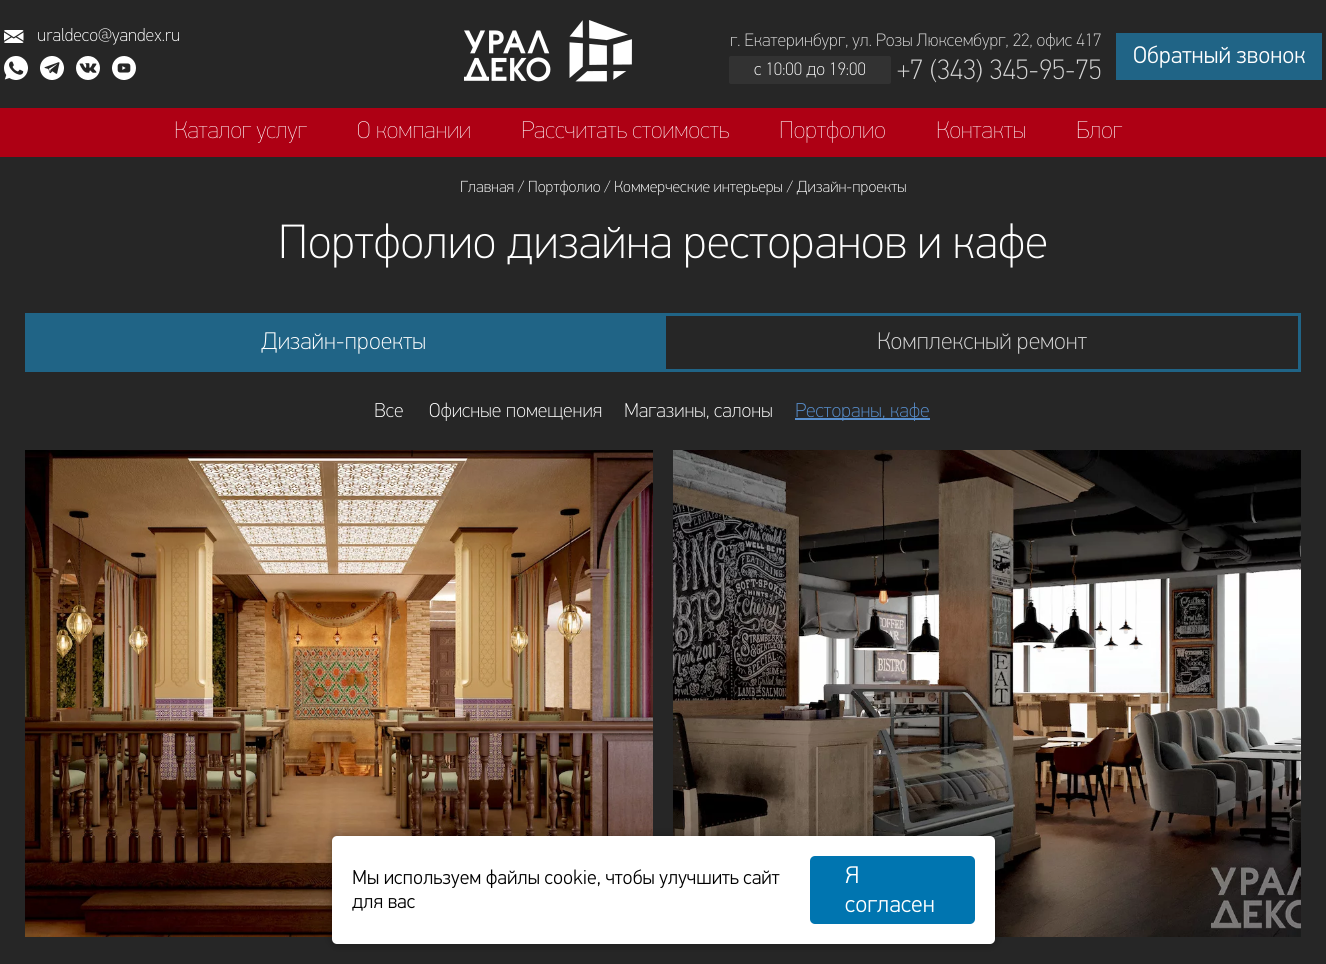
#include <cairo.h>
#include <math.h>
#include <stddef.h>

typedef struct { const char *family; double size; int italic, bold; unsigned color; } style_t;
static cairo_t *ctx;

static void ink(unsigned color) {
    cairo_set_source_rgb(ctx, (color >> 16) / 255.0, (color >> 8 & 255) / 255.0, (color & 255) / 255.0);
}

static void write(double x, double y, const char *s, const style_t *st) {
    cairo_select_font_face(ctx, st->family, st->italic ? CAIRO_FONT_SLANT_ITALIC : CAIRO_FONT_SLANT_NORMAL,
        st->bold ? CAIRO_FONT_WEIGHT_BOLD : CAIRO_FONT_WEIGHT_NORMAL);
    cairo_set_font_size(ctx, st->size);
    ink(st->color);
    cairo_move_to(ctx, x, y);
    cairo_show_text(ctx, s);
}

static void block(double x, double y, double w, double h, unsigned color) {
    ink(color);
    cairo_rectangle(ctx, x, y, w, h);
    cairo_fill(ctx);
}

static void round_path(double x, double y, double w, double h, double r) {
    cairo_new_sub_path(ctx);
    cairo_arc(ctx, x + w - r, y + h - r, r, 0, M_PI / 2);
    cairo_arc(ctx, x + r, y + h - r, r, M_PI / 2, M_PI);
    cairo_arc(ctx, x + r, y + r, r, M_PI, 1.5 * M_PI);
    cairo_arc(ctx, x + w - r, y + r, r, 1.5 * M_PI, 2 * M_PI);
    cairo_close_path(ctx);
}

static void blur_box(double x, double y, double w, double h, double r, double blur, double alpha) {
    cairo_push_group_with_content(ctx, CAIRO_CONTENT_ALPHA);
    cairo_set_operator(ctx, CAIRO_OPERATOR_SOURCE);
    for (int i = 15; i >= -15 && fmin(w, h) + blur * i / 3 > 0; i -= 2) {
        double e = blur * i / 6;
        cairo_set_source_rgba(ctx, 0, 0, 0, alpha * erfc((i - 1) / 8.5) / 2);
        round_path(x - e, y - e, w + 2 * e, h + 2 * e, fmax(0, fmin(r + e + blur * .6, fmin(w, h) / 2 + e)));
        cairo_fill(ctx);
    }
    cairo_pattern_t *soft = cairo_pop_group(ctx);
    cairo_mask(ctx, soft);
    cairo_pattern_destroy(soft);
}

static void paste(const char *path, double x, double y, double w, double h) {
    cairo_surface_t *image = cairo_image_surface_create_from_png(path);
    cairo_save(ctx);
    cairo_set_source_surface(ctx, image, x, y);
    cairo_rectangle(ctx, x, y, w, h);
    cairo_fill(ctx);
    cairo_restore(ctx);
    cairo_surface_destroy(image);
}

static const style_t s1 = {"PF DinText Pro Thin", 18, 0, 0, 0xffffff};
static const style_t s2 = {"PF DinText Pro Thin", 18, 0, 0, 0xd6d6d6};
static const style_t s3 = {"PF DinText Pro Thin", 28, 0, 0, 0xd6d6d6};
static const style_t s4 = {"PF DinText Pro Light", 24, 0, 0, 0xffffff};
static const style_t s5 = {"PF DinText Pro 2 Thin", 24, 0, 0, 0xffffff};
static const style_t s6 = {"PF DinText Pro Thin", 16, 0, 0, 0xffffff};
static const style_t s7 = {"PF DinText Pro Thin", 48, 0, 0, 0xffffff};
static const style_t s8 = {"PF DinText Pro Thin", 24, 0, 0, 0xffffff};
static const style_t s9 = {"PF DinText Pro Thin", 24, 0, 0, 0xd6d6d6};
static const style_t s10 = {"PF DinText Pro Thin", 20, 0, 0, 0xffffff};
static const style_t s11 = {"PF DinText Pro Thin", 20, 0, 0, 0x588fce};
static const style_t s12 = {"PF DinText Pro Light", 20, 0, 0, 0x000000};

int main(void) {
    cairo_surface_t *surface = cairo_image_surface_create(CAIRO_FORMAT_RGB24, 1326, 964);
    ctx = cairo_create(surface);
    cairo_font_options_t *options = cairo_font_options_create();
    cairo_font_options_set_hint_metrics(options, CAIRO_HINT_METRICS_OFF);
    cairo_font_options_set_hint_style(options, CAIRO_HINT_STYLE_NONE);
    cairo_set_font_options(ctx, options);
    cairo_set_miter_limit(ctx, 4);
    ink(0x262626);
    cairo_paint(ctx);
    paste("pic1.png", 4, 30, 20, 13);
    write(37, 41, "uraldeco@yandex.ru", &s1);
    paste("pic2.png", 4, 56, 24, 24);
    paste("pic3.png", 40, 56, 24, 24);
    paste("pic4.png", 76, 56, 24, 24);
    paste("pic5.png", 112, 56, 24, 24);
    paste("pic6.png", 464, 20, 168, 62);
    write(730, 46, "г. Екатеринбург, ул. Розы Люксембург, 22, офис 417", &s2);
    ink(0x323232);
    round_path(729, 56, 162, 28, 2);
    cairo_fill(ctx);
    write(754, 75, "с 10:00 до 19:00", &s1);
    write(897, 79, "+7 (343) 345-95-75", &s3);
    block(1116, 33, 206, 47, 0x206486);
    write(1133, 63, "Обратный звонок", &s4);
    block(0, 108, 1326, 49, 0xae0014);
    write(174, 138, "Каталог услуг", &s5);
    write(357, 138, "О компании", &s5);
    write(521, 138, "Рассчитать стоимость", &s5);
    write(779, 138, "Портфолио", &s5);
    write(936, 138, "Контакты", &s5);
    write(1076, 138, "Блог", &s5);
    write(460, 192, "Главная / Портфолио / Коммерческие интерьеры / Дизайн-проекты", &s6);
    write(278, 258, "Портфолио дизайна ресторанов и кафе", &s7);
    block(25, 313, 638, 59, 0x206486);
    write(261, 349, "Дизайн-проекты", &s8);
    cairo_rectangle(ctx, 664.5, 314.5, 635, 56);
    ink(0x206486);
    cairo_set_line_width(ctx, 3);
    cairo_stroke(ctx);
    write(877, 349, "Комплексный ремонт", &s9);
    write(374, 417, "Все", &s10);
    write(429, 417, "Офисные помещения", &s10);
    write(624, 417, "Магазины, салоны", &s10);
    block(795, 418, 135, 2, 0x588fce);
    write(795, 417, "Рестораны, кафе", &s11);
    paste("pic7.png", 25, 450, 628, 487);
    paste("pic8.png", 673, 450, 628, 487);
    ink(0x000000);
    blur_box(332, 836, 663, 108, 5, 5, 0.3);
    ink(0xffffff);
    round_path(332, 836, 663, 108, 5);
    cairo_fill(ctx);
    write(352, 884, "Мы используем файлы cookie, чтобы улучшить сайт", &s12);
    write(352, 908, "для вас", &s12);
    ink(0x0075b0);
    round_path(810, 856, 165, 68, 5);
    cairo_fill(ctx);
    write(845, 883, "Я", &s4);
    write(845, 912, "согласен", &s4);
    cairo_surface_write_to_png(surface, "screenshot.png");
    cairo_font_options_destroy(options);
    cairo_destroy(ctx);
    cairo_surface_destroy(surface);
    return 0;
}
